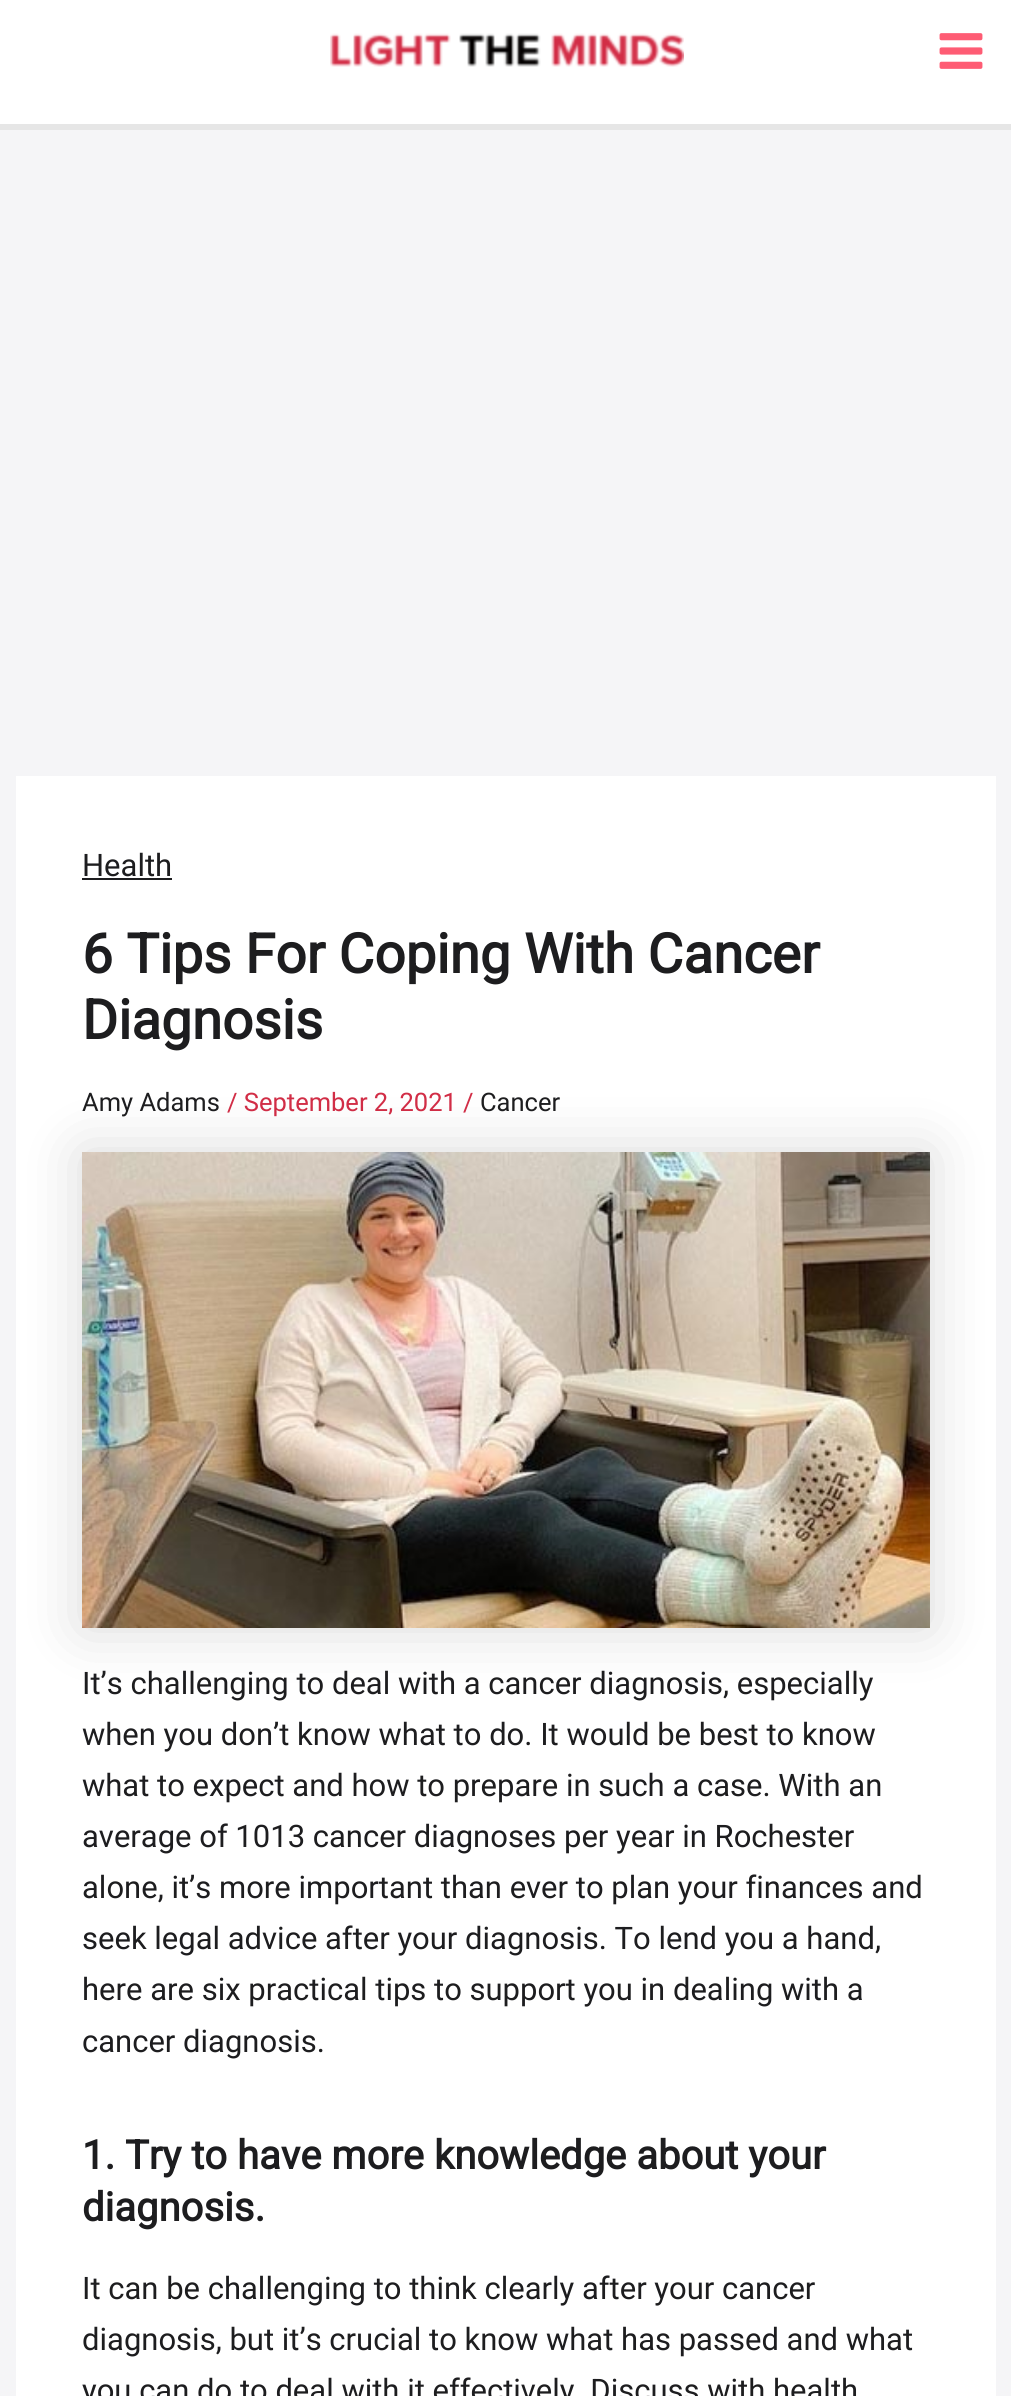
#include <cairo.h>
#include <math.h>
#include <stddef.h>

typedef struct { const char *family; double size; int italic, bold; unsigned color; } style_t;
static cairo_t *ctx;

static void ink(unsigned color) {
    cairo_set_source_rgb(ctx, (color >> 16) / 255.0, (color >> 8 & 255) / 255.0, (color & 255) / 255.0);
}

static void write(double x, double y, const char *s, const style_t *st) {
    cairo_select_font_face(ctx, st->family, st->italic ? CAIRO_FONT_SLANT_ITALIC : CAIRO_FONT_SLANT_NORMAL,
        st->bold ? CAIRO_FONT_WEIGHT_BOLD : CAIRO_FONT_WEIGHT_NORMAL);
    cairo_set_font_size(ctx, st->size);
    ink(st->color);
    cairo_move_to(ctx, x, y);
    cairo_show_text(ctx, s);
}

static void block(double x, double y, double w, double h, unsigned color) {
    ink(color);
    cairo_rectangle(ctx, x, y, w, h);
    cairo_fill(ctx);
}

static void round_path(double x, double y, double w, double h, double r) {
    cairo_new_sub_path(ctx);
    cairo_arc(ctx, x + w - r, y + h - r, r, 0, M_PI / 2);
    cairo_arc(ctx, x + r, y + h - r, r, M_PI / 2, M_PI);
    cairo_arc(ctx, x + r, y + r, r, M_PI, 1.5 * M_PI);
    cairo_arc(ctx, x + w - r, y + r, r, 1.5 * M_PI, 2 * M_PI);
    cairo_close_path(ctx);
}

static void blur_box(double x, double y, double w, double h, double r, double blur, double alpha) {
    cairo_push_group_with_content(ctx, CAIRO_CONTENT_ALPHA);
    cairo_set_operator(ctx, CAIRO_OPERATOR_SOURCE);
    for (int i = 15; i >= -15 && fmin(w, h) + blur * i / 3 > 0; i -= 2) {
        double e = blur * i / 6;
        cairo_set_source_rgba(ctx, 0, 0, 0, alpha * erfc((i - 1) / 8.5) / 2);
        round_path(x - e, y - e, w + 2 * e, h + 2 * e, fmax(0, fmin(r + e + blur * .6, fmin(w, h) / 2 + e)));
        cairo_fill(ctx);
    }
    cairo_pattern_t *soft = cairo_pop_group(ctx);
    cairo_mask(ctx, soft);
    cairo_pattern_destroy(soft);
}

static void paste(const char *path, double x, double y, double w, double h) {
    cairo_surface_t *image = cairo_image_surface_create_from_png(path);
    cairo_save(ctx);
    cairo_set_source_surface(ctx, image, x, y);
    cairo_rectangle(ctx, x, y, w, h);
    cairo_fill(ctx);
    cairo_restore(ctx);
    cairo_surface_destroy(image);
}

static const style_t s1 = {"Roboto", 31, 0, 0, 0x1d1d1f};
static const style_t s2 = {"Roboto", 54.75, 0, 1, 0x1d1d1f};
static const style_t s3 = {"Roboto", 25.5, 0, 0, 0x1d1d1f};
static const style_t s4 = {"Roboto", 25.5, 0, 0, 0xd22d46};
static const style_t s5 = {"Roboto", 40, 0, 1, 0x1d1d1f};

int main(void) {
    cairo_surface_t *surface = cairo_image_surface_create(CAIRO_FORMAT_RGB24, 1011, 2396);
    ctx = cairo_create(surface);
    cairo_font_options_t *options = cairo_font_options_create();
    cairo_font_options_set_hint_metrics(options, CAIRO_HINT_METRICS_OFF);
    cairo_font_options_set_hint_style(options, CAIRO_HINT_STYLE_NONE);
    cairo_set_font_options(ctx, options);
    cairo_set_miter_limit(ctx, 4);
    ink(0xf5f5f7);
    cairo_paint(ctx);
    block(0, 0, 1011, 124, 0xffffff);
    block(0, 124, 1011, 6, 0xe6e6e6);
    paste("pic1.png", 330, 33, 354, 34);
    paste("pic2.png", 939, 33, 44, 36);
    block(16, 776, 980, 1620, 0xffffff);
    write(82, 876, "Health", &s1);
    block(82, 878, 90, 2, 0x1d1d1f);
    write(82, 973, "6 Tips For Coping With Cancer", &s2);
    write(82, 1039, "Diagnosis", &s2);
    write(82, 1111, "Amy Adams", &s3);
    write(227, 1111, "/ September 2, 2021", &s4);
    write(463, 1111, "/", &s4);
    write(480, 1111, "Cancer", &s3);
    ink(0x000000);
    blur_box(82, 1152, 848, 476, 0, 30, 0.15);
    paste("pic3.png", 82, 1152, 848, 476);
    write(82, 1694, "It’s challenging to deal with a cancer diagnosis, especially", &s1);
    write(82, 1745, "when you don’t know what to do. It would be best to know", &s1);
    write(82, 1796, "what to expect and how to prepare in such a case. With an", &s1);
    write(82, 1847, "average of 1013 cancer diagnoses per year in Rochester", &s1);
    write(82, 1898, "alone, it’s more important than ever to plan your finances and", &s1);
    write(82, 1949, "seek legal advice after your diagnosis. To lend you a hand,", &s1);
    write(82, 2000, "here are six practical tips to support you in dealing with a", &s1);
    write(82, 2052, "cancer diagnosis.", &s1);
    write(82, 2169, "1. Try to have more knowledge about your", &s5);
    write(82, 2221, "diagnosis.", &s5);
    write(82, 2299, "It can be challenging to think clearly after your cancer", &s1);
    write(82, 2350, "diagnosis, but it’s crucial to know what has passed and what", &s1);
    write(82, 2401, "you can do to deal with it effectively. Discuss with health", &s1);
    cairo_surface_write_to_png(surface, "screenshot.png");
    cairo_font_options_destroy(options);
    cairo_destroy(ctx);
    cairo_surface_destroy(surface);
    return 0;
}
